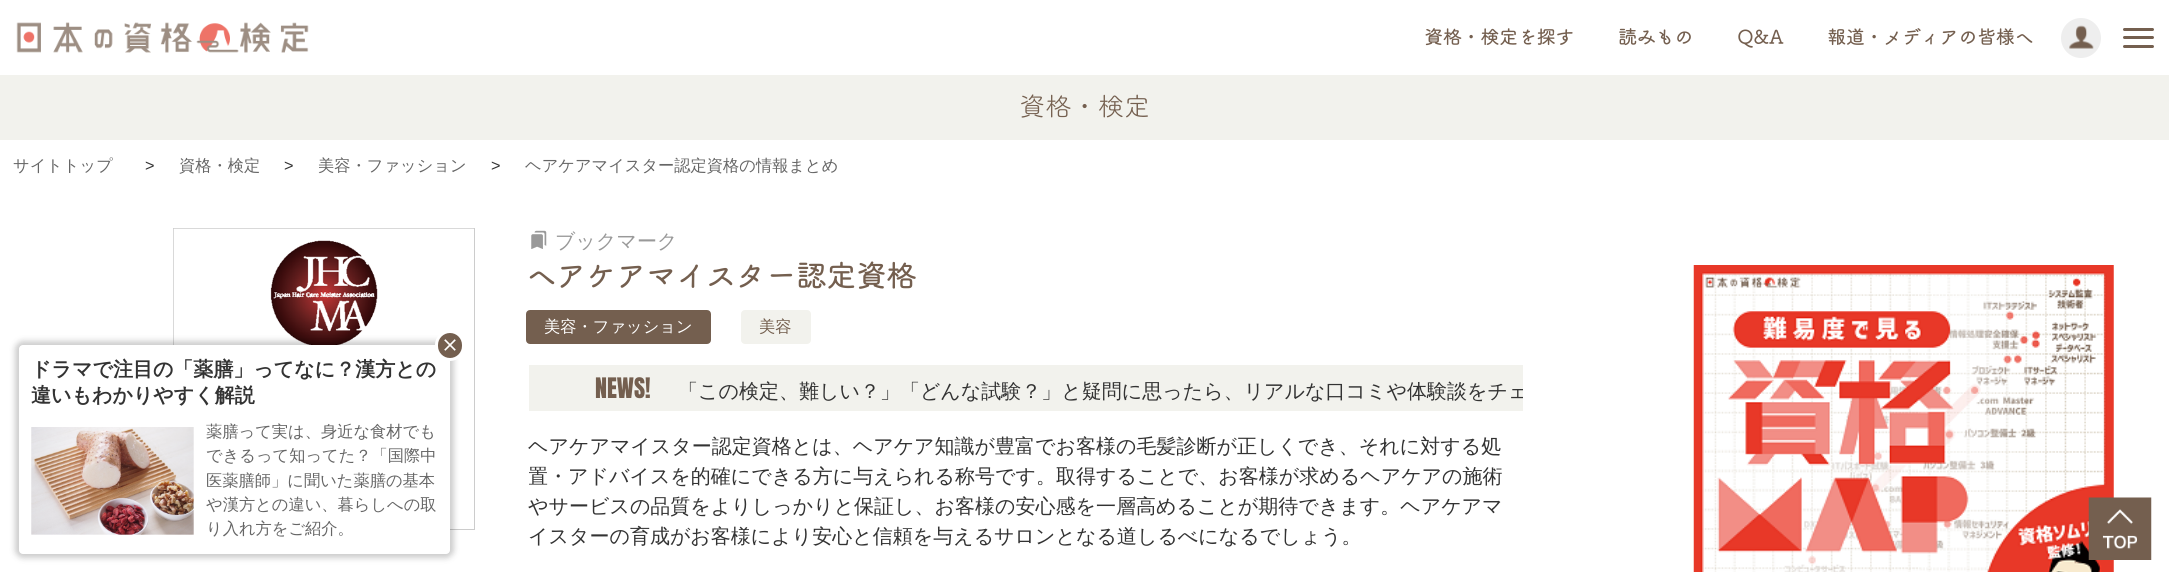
#include <cairo.h>
#include <math.h>
#include <stddef.h>

typedef struct { const char *family; double size; int italic, bold; unsigned color; } style_t;
static cairo_t *ctx;

static void ink(unsigned color) {
    cairo_set_source_rgb(ctx, (color >> 16) / 255.0, (color >> 8 & 255) / 255.0, (color & 255) / 255.0);
}

static void write(double x, double y, const char *s, const style_t *st) {
    cairo_select_font_face(ctx, st->family, st->italic ? CAIRO_FONT_SLANT_ITALIC : CAIRO_FONT_SLANT_NORMAL,
        st->bold ? CAIRO_FONT_WEIGHT_BOLD : CAIRO_FONT_WEIGHT_NORMAL);
    cairo_set_font_size(ctx, st->size);
    ink(st->color);
    cairo_move_to(ctx, x, y);
    cairo_show_text(ctx, s);
}

static void block(double x, double y, double w, double h, unsigned color) {
    ink(color);
    cairo_rectangle(ctx, x, y, w, h);
    cairo_fill(ctx);
}

static void round_path(double x, double y, double w, double h, double r) {
    cairo_new_sub_path(ctx);
    cairo_arc(ctx, x + w - r, y + h - r, r, 0, M_PI / 2);
    cairo_arc(ctx, x + r, y + h - r, r, M_PI / 2, M_PI);
    cairo_arc(ctx, x + r, y + r, r, M_PI, 1.5 * M_PI);
    cairo_arc(ctx, x + w - r, y + r, r, 1.5 * M_PI, 2 * M_PI);
    cairo_close_path(ctx);
}

static void blur_box(double x, double y, double w, double h, double r, double blur, double alpha) {
    cairo_push_group_with_content(ctx, CAIRO_CONTENT_ALPHA);
    cairo_set_operator(ctx, CAIRO_OPERATOR_SOURCE);
    for (int i = 15; i >= -15 && fmin(w, h) + blur * i / 3 > 0; i -= 2) {
        double e = blur * i / 6;
        cairo_set_source_rgba(ctx, 0, 0, 0, alpha * erfc((i - 1) / 8.5) / 2);
        round_path(x - e, y - e, w + 2 * e, h + 2 * e, fmax(0, fmin(r + e + blur * .6, fmin(w, h) / 2 + e)));
        cairo_fill(ctx);
    }
    cairo_pattern_t *soft = cairo_pop_group(ctx);
    cairo_mask(ctx, soft);
    cairo_pattern_destroy(soft);
}

static void paste(const char *path, double x, double y, double w, double h) {
    cairo_surface_t *image = cairo_image_surface_create_from_png(path);
    cairo_save(ctx);
    cairo_set_source_surface(ctx, image, x, y);
    cairo_rectangle(ctx, x, y, w, h);
    cairo_fill(ctx);
    cairo_restore(ctx);
    cairo_surface_destroy(image);
}

static const style_t s1 = {"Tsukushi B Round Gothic", 18.75, 0, 1, 0x745f4f};
static const style_t s2 = {"Tsukushi B Round Gothic", 26.25, 0, 0, 0x745f4f};
static const style_t s3 = {"WenQuanYi Zen Hei Medium", 16.25, 0, 0, 0x666666};
static const style_t s4 = {"Liberation Sans", 16.25, 0, 0, 0x333333};
static const style_t s5 = {"WenQuanYi Zen Hei", 20, 0, 1, 0x333333};
static const style_t s6 = {"WenQuanYi Zen Hei Medium", 20, 0, 0, 0x999999};
static const style_t s7 = {"Tsukushi B Round Gothic", 30, 0, 1, 0x745f4f};
static const style_t s8 = {"WenQuanYi Zen Hei Medium", 16.25, 0, 0, 0xffffff};
static const style_t s9 = {"WenQuanYi Zen Hei Medium", 16.25, 0, 0, 0x745f4f};
static const style_t s10 = {"Anton", 24, 0, 0, 0x745f4f};
static const style_t s11 = {"WenQuanYi Zen Hei Medium", 20, 0, 0, 0x333333};

int main(void) {
    cairo_surface_t *surface = cairo_image_surface_create(CAIRO_FORMAT_RGB24, 2169, 572);
    ctx = cairo_create(surface);
    cairo_font_options_t *options = cairo_font_options_create();
    cairo_font_options_set_hint_metrics(options, CAIRO_HINT_METRICS_OFF);
    cairo_font_options_set_hint_style(options, CAIRO_HINT_STYLE_NONE);
    cairo_set_font_options(ctx, options);
    cairo_set_miter_limit(ctx, 4);
    ink(0xffffff);
    cairo_paint(ctx);
    paste("pic1.png", 16, 22, 293, 31);
    write(1424, 44, "資格・検定を探す", &s1);
    write(1618, 44, "読みもの", &s1);
    write(1737, 44, "Q&A", &s1);
    write(1827, 44, "報道・メディアの皆様へ", &s1);
    ink(0xeeeeee);
    cairo_new_path(ctx);
    cairo_arc(ctx, 2081, 38, 20, 0, 2 * M_PI);
    cairo_fill(ctx);
    paste("pic2.png", 2069, 25, 25, 24);
    ink(0x745f4f);
    round_path(2123, 28, 31, 3, 1.5);
    cairo_fill(ctx);
    round_path(2123, 36, 31, 3, 1.5);
    cairo_fill(ctx);
    round_path(2123, 45, 31, 3, 1.5);
    cairo_fill(ctx);
    block(0, 75, 2169, 65, 0xf2f2ed);
    write(1019, 116, "資格・検定", &s2);
    write(13, 171, "サイトトップ", &s3);
    write(145, 171, ">", &s4);
    write(179, 171, "資格・検定", &s3);
    write(284, 171, ">", &s4);
    write(318, 171, "美容・ファッション", &s3);
    write(491, 171, ">", &s4);
    write(525, 171, "ヘアケアマイスター認定資格の情報まとめ", &s3);
    cairo_rectangle(ctx, 173.5, 228.5, 301, 301);
    ink(0xcccccc);
    cairo_set_line_width(ctx, 1);
    cairo_stroke(ctx);
    paste("pic5.png", 173, 228, 301, 301);
    ink(0x000000);
    blur_box(15, 341, 439, 217, 8, 3, 0.2);
    ink(0xffffff);
    round_path(19, 345, 431, 209, 4);
    cairo_fill(ctx);
    write(31, 376, "ドラマで注目の「薬膳」ってなに？漢方との", &s5);
    ink(0x745f4f);
    round_path(436.5, 331.5, 27, 28, 13.5);
    cairo_fill_preserve(ctx);
    ink(0xffffff);
    cairo_set_line_width(ctx, 3);
    cairo_stroke(ctx);
    paste("pic3.png", 444, 339, 12, 12);
    write(31, 402, "違いもわかりやすく解説", &s5);
    paste("pic4.png", 31, 427, 163, 108);
    write(206, 437, "薬膳って実は、身近な食材でも", &s3);
    write(206, 461, "できるって知ってた？「国際中", &s3);
    write(206, 486, "医薬膳師」に聞いた薬膳の基本", &s3);
    write(206, 510, "や漢方との違い、暮らしへの取", &s3);
    write(206, 534, "り入れ方をご紹介。", &s3);
    paste("pic6.png", 531, 230, 16, 19);
    write(555, 248, "ブックマーク", &s6);
    write(526, 287, "ヘアケアマイスター認定資格", &s7);
    round_path(527.5, 311.5, 182, 31, 2.5);
    cairo_fill_preserve(ctx);
    cairo_stroke(ctx);
    write(544, 332, "美容・ファッション", &s8);
    ink(0xf2f2ed);
    round_path(742.5, 311.5, 67, 31, 2.5);
    cairo_fill_preserve(ctx);
    cairo_stroke(ctx);
    write(759, 332, "美容", &s9);
    block(529, 365, 994, 46, 0xf2f2ed);
    write(595, 398, "NEWS!", &s10);
    cairo_save(ctx);
    cairo_rectangle(ctx, 529, 365, 994, 46);
    cairo_clip(ctx);
    write(678, 398, "「この検定、難しい？」「どんな試験？」と疑問に思ったら、リアルな口コミや体験談をチェ", &s11);
    cairo_restore(ctx);
    write(528, 453, "ヘアケアマイスター認定資格とは、ヘアケア知識が豊富でお客様の毛髪診断が正しくでき、それに対する処", &s11);
    cairo_save(ctx);
    cairo_rectangle(ctx, 529, 431, 994, 120);
    cairo_clip(ctx);
    write(528, 483, "置・アドバイスを的確にできる方に与えられる称号です。取得することで、お客様が求めるヘアケアの施術", &s11);
    cairo_restore(ctx);
    write(528, 513, "やサービスの品質をよりしっかりと保証し、お客様の安心感を一層高めることが期待できます。ヘアケアマ", &s11);
    write(528, 543, "イスターの育成がお客様により安心と信頼を与えるサロンとなる道しるべになるでしょう。", &s11);
    paste("pic7.png", 1693, 265, 421, 307);
    paste("pic8.png", 2088, 497, 64, 63);
    cairo_surface_write_to_png(surface, "screenshot.png");
    cairo_font_options_destroy(options);
    cairo_destroy(ctx);
    cairo_surface_destroy(surface);
    return 0;
}
